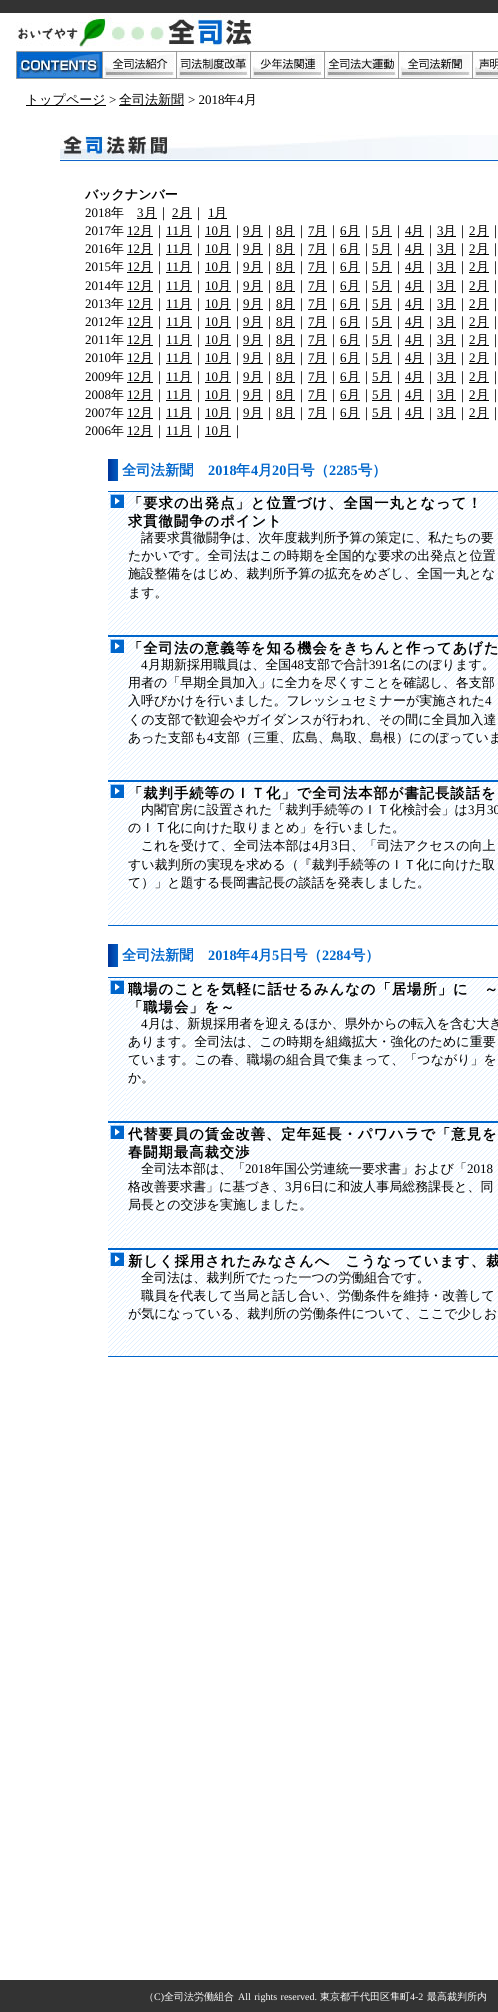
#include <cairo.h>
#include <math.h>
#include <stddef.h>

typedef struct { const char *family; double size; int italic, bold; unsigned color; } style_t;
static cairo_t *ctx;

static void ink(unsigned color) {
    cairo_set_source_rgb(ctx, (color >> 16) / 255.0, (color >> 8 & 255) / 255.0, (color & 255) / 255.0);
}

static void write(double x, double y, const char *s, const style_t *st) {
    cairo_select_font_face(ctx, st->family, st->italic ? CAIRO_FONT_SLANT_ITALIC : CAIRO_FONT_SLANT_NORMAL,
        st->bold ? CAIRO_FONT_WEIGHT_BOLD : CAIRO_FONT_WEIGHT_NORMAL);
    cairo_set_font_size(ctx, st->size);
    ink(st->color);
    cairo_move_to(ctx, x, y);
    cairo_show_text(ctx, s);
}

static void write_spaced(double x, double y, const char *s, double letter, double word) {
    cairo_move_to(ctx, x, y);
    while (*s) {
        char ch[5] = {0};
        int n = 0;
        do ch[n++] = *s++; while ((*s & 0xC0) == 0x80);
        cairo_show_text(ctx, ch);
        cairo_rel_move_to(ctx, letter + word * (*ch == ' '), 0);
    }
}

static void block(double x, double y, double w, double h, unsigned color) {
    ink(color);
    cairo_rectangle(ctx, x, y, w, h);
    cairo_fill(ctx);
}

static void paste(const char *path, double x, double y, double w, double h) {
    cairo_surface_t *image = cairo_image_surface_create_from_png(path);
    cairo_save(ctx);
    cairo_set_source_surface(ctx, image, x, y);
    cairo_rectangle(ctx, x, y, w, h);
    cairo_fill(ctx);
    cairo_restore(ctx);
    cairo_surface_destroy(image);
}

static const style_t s1 = {"WenQuanYi Zen Hei Medium", 13, 0, 0, 0x000000};
static const style_t s2 = {"Liberation Serif", 13, 0, 0, 0x000000};
static const style_t s3 = {"WenQuanYi Zen Hei", 13, 0, 1, 0x000000};
static const style_t s4 = {"WenQuanYi Zen Hei", 14.3, 0, 1, 0x0066cc};
static const style_t s5 = {"Liberation Serif", 14.3, 0, 1, 0x0066cc};
static const style_t s6 = {"WenQuanYi Zen Hei Medium", 10, 0, 0, 0xffffff};
static const style_t s7 = {"Liberation Serif", 10, 0, 0, 0xffffff};

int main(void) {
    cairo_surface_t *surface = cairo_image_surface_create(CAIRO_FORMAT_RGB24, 498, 2012);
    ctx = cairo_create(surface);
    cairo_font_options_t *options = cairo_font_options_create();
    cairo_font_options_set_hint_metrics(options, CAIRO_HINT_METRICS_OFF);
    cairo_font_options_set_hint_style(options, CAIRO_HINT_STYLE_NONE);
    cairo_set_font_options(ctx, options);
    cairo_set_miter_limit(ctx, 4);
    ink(0x333333);
    cairo_paint(ctx);
    block(0, 13, 498, 1, 0xfefefe);
    block(0, 14, 16, 77, 0xffffff);
    block(16, 14, 482, 36, 0xffffff);
    paste("pic1.png", 16, 14, 240, 34);
    paste("pic2.png", 16, 50, 86, 29);
    paste("pic3.png", 102, 50, 74, 29);
    paste("pic4.png", 176, 50, 74, 29);
    paste("pic5.png", 250, 50, 74, 29);
    paste("pic6.png", 324, 50, 74, 29);
    paste("pic7.png", 398, 50, 74, 29);
    paste("pic8.png", 472, 50, 26, 29);
    block(16, 79, 482, 12, 0xffffff);
    block(0, 91, 498, 1889, 0xffffff);
    block(26, 105, 80, 1, 0x000000);
    write(26, 104, "トップページ", &s1);
    write(109, 104, ">", &s2);
    block(119, 105, 65, 1, 0x000000);
    write(119, 104, "全司法新聞", &s1);
    write(188, 104, "> 2018", &s2);
    write(224, 104, "年", &s1);
    write(237, 104, "4", &s2);
    write(244, 104, "月", &s1);
    paste("pic9.png", 60, 135, 438, 32);
    write(85, 199, "バックナンバー", &s3);
    write(85, 217, "2018", &s2);
    write(111, 217, "年", &s1);
    write(137, 217, "3", &s2);
    block(137, 218, 20, 1, 0x000000);
    write(144, 217, "月｜", &s1);
    write(172, 217, "2", &s2);
    block(172, 218, 20, 1, 0x000000);
    write(179, 217, "月｜", &s1);
    write(208, 217, "1", &s2);
    block(208, 218, 19, 1, 0x000000);
    write(214, 217, "月", &s1);
    write(85, 235, "2017", &s2);
    write(111, 235, "年", &s1);
    write(127, 235, "12", &s2);
    block(127, 236, 26, 1, 0x000000);
    write(140, 235, "月｜", &s1);
    write(166, 235, "11", &s2);
    block(166, 236, 26, 1, 0x000000);
    write(179, 235, "月｜", &s1);
    write(205, 235, "10", &s2);
    block(205, 236, 26, 1, 0x000000);
    write(218, 235, "月｜", &s1);
    write(243, 235, "9", &s2);
    block(243, 236, 20, 1, 0x000000);
    write(250, 235, "月｜", &s1);
    write(276, 235, "8", &s2);
    block(276, 236, 19, 1, 0x000000);
    write(282, 235, "月｜", &s1);
    write(308, 235, "7", &s2);
    block(308, 236, 19, 1, 0x000000);
    write(314, 235, "月｜", &s1);
    write(340, 235, "6", &s2);
    block(340, 236, 20, 1, 0x000000);
    write(347, 235, "月｜", &s1);
    write(372, 235, "5", &s2);
    block(372, 236, 20, 1, 0x000000);
    write(379, 235, "月｜", &s1);
    write(405, 235, "4", &s2);
    block(405, 236, 19, 1, 0x000000);
    write(411, 235, "月｜", &s1);
    write(437, 235, "3", &s2);
    block(437, 236, 19, 1, 0x000000);
    write(443, 235, "月｜", &s1);
    write(469, 235, "2", &s2);
    block(469, 236, 20, 1, 0x000000);
    write(476, 235, "月｜", &s1);
    write(85, 253, "2016", &s2);
    write(111, 253, "年", &s1);
    write(127, 253, "12", &s2);
    block(127, 254, 26, 1, 0x000000);
    write(140, 253, "月｜", &s1);
    write(166, 253, "11", &s2);
    block(166, 254, 26, 1, 0x000000);
    write(179, 253, "月｜", &s1);
    write(205, 253, "10", &s2);
    block(205, 254, 26, 1, 0x000000);
    write(218, 253, "月｜", &s1);
    write(243, 253, "9", &s2);
    block(243, 254, 20, 1, 0x000000);
    write(250, 253, "月｜", &s1);
    write(276, 253, "8", &s2);
    block(276, 254, 19, 1, 0x000000);
    write(282, 253, "月｜", &s1);
    write(308, 253, "7", &s2);
    block(308, 254, 19, 1, 0x000000);
    write(314, 253, "月｜", &s1);
    write(340, 253, "6", &s2);
    block(340, 254, 20, 1, 0x000000);
    write(347, 253, "月｜", &s1);
    write(372, 253, "5", &s2);
    block(372, 254, 20, 1, 0x000000);
    write(379, 253, "月｜", &s1);
    write(405, 253, "4", &s2);
    block(405, 254, 19, 1, 0x000000);
    write(411, 253, "月｜", &s1);
    write(437, 253, "3", &s2);
    block(437, 254, 19, 1, 0x000000);
    write(443, 253, "月｜", &s1);
    write(469, 253, "2", &s2);
    block(469, 254, 20, 1, 0x000000);
    write(476, 253, "月｜", &s1);
    write(85, 271, "2015", &s2);
    write(111, 271, "年", &s1);
    write(127, 271, "12", &s2);
    block(127, 272, 26, 1, 0x000000);
    write(140, 271, "月｜", &s1);
    write(166, 271, "11", &s2);
    block(166, 272, 26, 1, 0x000000);
    write(179, 271, "月｜", &s1);
    write(205, 271, "10", &s2);
    block(205, 272, 26, 1, 0x000000);
    write(218, 271, "月｜", &s1);
    write(243, 271, "9", &s2);
    block(243, 272, 20, 1, 0x000000);
    write(250, 271, "月｜", &s1);
    write(276, 271, "8", &s2);
    block(276, 272, 19, 1, 0x000000);
    write(282, 271, "月｜", &s1);
    write(308, 271, "7", &s2);
    block(308, 272, 19, 1, 0x000000);
    write(314, 271, "月｜", &s1);
    write(340, 271, "6", &s2);
    block(340, 272, 20, 1, 0x000000);
    write(347, 271, "月｜", &s1);
    write(372, 271, "5", &s2);
    block(372, 272, 20, 1, 0x000000);
    write(379, 271, "月｜", &s1);
    write(405, 271, "4", &s2);
    block(405, 272, 19, 1, 0x000000);
    write(411, 271, "月｜", &s1);
    write(437, 271, "3", &s2);
    block(437, 272, 19, 1, 0x000000);
    write(443, 271, "月｜", &s1);
    write(469, 271, "2", &s2);
    block(469, 272, 20, 1, 0x000000);
    write(476, 271, "月｜", &s1);
    write(85, 290, "2014", &s2);
    write(111, 290, "年", &s1);
    write(127, 290, "12", &s2);
    block(127, 291, 26, 1, 0x000000);
    write(140, 290, "月｜", &s1);
    write(166, 290, "11", &s2);
    block(166, 291, 26, 1, 0x000000);
    write(179, 290, "月｜", &s1);
    write(205, 290, "10", &s2);
    block(205, 291, 26, 1, 0x000000);
    write(218, 290, "月｜", &s1);
    write(243, 290, "9", &s2);
    block(243, 291, 20, 1, 0x000000);
    write(250, 290, "月｜", &s1);
    write(276, 290, "8", &s2);
    block(276, 291, 19, 1, 0x000000);
    write(282, 290, "月｜", &s1);
    write(308, 290, "7", &s2);
    block(308, 291, 19, 1, 0x000000);
    write(314, 290, "月｜", &s1);
    write(340, 290, "6", &s2);
    block(340, 291, 20, 1, 0x000000);
    write(347, 290, "月｜", &s1);
    write(372, 290, "5", &s2);
    block(372, 291, 20, 1, 0x000000);
    write(379, 290, "月｜", &s1);
    write(405, 290, "4", &s2);
    block(405, 291, 19, 1, 0x000000);
    write(411, 290, "月｜", &s1);
    write(437, 290, "3", &s2);
    block(437, 291, 19, 1, 0x000000);
    write(443, 290, "月｜", &s1);
    write(469, 290, "2", &s2);
    block(469, 291, 20, 1, 0x000000);
    write(476, 290, "月｜", &s1);
    write(85, 308, "2013", &s2);
    write(111, 308, "年", &s1);
    write(127, 308, "12", &s2);
    block(127, 309, 26, 1, 0x000000);
    write(140, 308, "月｜", &s1);
    write(166, 308, "11", &s2);
    block(166, 309, 26, 1, 0x000000);
    write(179, 308, "月｜", &s1);
    write(205, 308, "10", &s2);
    block(205, 309, 26, 1, 0x000000);
    write(218, 308, "月｜", &s1);
    write(243, 308, "9", &s2);
    block(243, 309, 20, 1, 0x000000);
    write(250, 308, "月｜", &s1);
    write(276, 308, "8", &s2);
    block(276, 309, 19, 1, 0x000000);
    write(282, 308, "月｜", &s1);
    write(308, 308, "7", &s2);
    block(308, 309, 19, 1, 0x000000);
    write(314, 308, "月｜", &s1);
    write(340, 308, "6", &s2);
    block(340, 309, 20, 1, 0x000000);
    write(347, 308, "月｜", &s1);
    write(372, 308, "5", &s2);
    block(372, 309, 20, 1, 0x000000);
    write(379, 308, "月｜", &s1);
    write(405, 308, "4", &s2);
    block(405, 309, 19, 1, 0x000000);
    write(411, 308, "月｜", &s1);
    write(437, 308, "3", &s2);
    block(437, 309, 19, 1, 0x000000);
    write(443, 308, "月｜", &s1);
    write(469, 308, "2", &s2);
    block(469, 309, 20, 1, 0x000000);
    write(476, 308, "月｜", &s1);
    write(85, 326, "2012", &s2);
    write(111, 326, "年", &s1);
    write(127, 326, "12", &s2);
    block(127, 327, 26, 1, 0x000000);
    write(140, 326, "月｜", &s1);
    write(166, 326, "11", &s2);
    block(166, 327, 26, 1, 0x000000);
    write(179, 326, "月｜", &s1);
    write(205, 326, "10", &s2);
    block(205, 327, 26, 1, 0x000000);
    write(218, 326, "月｜", &s1);
    write(243, 326, "9", &s2);
    block(243, 327, 20, 1, 0x000000);
    write(250, 326, "月｜", &s1);
    write(276, 326, "8", &s2);
    block(276, 327, 19, 1, 0x000000);
    write(282, 326, "月｜", &s1);
    write(308, 326, "7", &s2);
    block(308, 327, 19, 1, 0x000000);
    write(314, 326, "月｜", &s1);
    write(340, 326, "6", &s2);
    block(340, 327, 20, 1, 0x000000);
    write(347, 326, "月｜", &s1);
    write(372, 326, "5", &s2);
    block(372, 327, 20, 1, 0x000000);
    write(379, 326, "月｜", &s1);
    write(405, 326, "4", &s2);
    block(405, 327, 19, 1, 0x000000);
    write(411, 326, "月｜", &s1);
    write(437, 326, "3", &s2);
    block(437, 327, 19, 1, 0x000000);
    write(443, 326, "月｜", &s1);
    write(469, 326, "2", &s2);
    block(469, 327, 20, 1, 0x000000);
    write(476, 326, "月｜", &s1);
    write(85, 344, "2011", &s2);
    write(111, 344, "年", &s1);
    write(127, 344, "12", &s2);
    block(127, 345, 26, 1, 0x000000);
    write(140, 344, "月｜", &s1);
    write(166, 344, "11", &s2);
    block(166, 345, 26, 1, 0x000000);
    write(179, 344, "月｜", &s1);
    write(205, 344, "10", &s2);
    block(205, 345, 26, 1, 0x000000);
    write(218, 344, "月｜", &s1);
    write(243, 344, "9", &s2);
    block(243, 345, 20, 1, 0x000000);
    write(250, 344, "月｜", &s1);
    write(276, 344, "8", &s2);
    block(276, 345, 19, 1, 0x000000);
    write(282, 344, "月｜", &s1);
    write(308, 344, "7", &s2);
    block(308, 345, 19, 1, 0x000000);
    write(314, 344, "月｜", &s1);
    write(340, 344, "6", &s2);
    block(340, 345, 20, 1, 0x000000);
    write(347, 344, "月｜", &s1);
    write(372, 344, "5", &s2);
    block(372, 345, 20, 1, 0x000000);
    write(379, 344, "月｜", &s1);
    write(405, 344, "4", &s2);
    block(405, 345, 19, 1, 0x000000);
    write(411, 344, "月｜", &s1);
    write(437, 344, "3", &s2);
    block(437, 345, 19, 1, 0x000000);
    write(443, 344, "月｜", &s1);
    write(469, 344, "2", &s2);
    block(469, 345, 20, 1, 0x000000);
    write(476, 344, "月｜", &s1);
    write(85, 362, "2010", &s2);
    write(111, 362, "年", &s1);
    write(127, 362, "12", &s2);
    block(127, 363, 26, 1, 0x000000);
    write(140, 362, "月｜", &s1);
    write(166, 362, "11", &s2);
    block(166, 363, 26, 1, 0x000000);
    write(179, 362, "月｜", &s1);
    write(205, 362, "10", &s2);
    block(205, 363, 26, 1, 0x000000);
    write(218, 362, "月｜", &s1);
    write(243, 362, "9", &s2);
    block(243, 363, 20, 1, 0x000000);
    write(250, 362, "月｜", &s1);
    write(276, 362, "8", &s2);
    block(276, 363, 19, 1, 0x000000);
    write(282, 362, "月｜", &s1);
    write(308, 362, "7", &s2);
    block(308, 363, 19, 1, 0x000000);
    write(314, 362, "月｜", &s1);
    write(340, 362, "6", &s2);
    block(340, 363, 20, 1, 0x000000);
    write(347, 362, "月｜", &s1);
    write(372, 362, "5", &s2);
    block(372, 363, 20, 1, 0x000000);
    write(379, 362, "月｜", &s1);
    write(405, 362, "4", &s2);
    block(405, 363, 19, 1, 0x000000);
    write(411, 362, "月｜", &s1);
    write(437, 362, "3", &s2);
    block(437, 363, 19, 1, 0x000000);
    write(443, 362, "月｜", &s1);
    write(469, 362, "2", &s2);
    block(469, 363, 20, 1, 0x000000);
    write(476, 362, "月｜", &s1);
    write(85, 381, "2009", &s2);
    write(111, 381, "年", &s1);
    write(127, 381, "12", &s2);
    block(127, 382, 26, 1, 0x000000);
    write(140, 381, "月｜", &s1);
    write(166, 381, "11", &s2);
    block(166, 382, 26, 1, 0x000000);
    write(179, 381, "月｜", &s1);
    write(205, 381, "10", &s2);
    block(205, 382, 26, 1, 0x000000);
    write(218, 381, "月｜", &s1);
    write(243, 381, "9", &s2);
    block(243, 382, 20, 1, 0x000000);
    write(250, 381, "月｜", &s1);
    write(276, 381, "8", &s2);
    block(276, 382, 19, 1, 0x000000);
    write(282, 381, "月｜", &s1);
    write(308, 381, "7", &s2);
    block(308, 382, 19, 1, 0x000000);
    write(314, 381, "月｜", &s1);
    write(340, 381, "6", &s2);
    block(340, 382, 20, 1, 0x000000);
    write(347, 381, "月｜", &s1);
    write(372, 381, "5", &s2);
    block(372, 382, 20, 1, 0x000000);
    write(379, 381, "月｜", &s1);
    write(405, 381, "4", &s2);
    block(405, 382, 19, 1, 0x000000);
    write(411, 381, "月｜", &s1);
    write(437, 381, "3", &s2);
    block(437, 382, 19, 1, 0x000000);
    write(443, 381, "月｜", &s1);
    write(469, 381, "2", &s2);
    block(469, 382, 20, 1, 0x000000);
    write(476, 381, "月｜", &s1);
    write(85, 399, "2008", &s2);
    write(111, 399, "年", &s1);
    write(127, 399, "12", &s2);
    block(127, 400, 26, 1, 0x000000);
    write(140, 399, "月｜", &s1);
    write(166, 399, "11", &s2);
    block(166, 400, 26, 1, 0x000000);
    write(179, 399, "月｜", &s1);
    write(205, 399, "10", &s2);
    block(205, 400, 26, 1, 0x000000);
    write(218, 399, "月｜", &s1);
    write(243, 399, "9", &s2);
    block(243, 400, 20, 1, 0x000000);
    write(250, 399, "月｜", &s1);
    write(276, 399, "8", &s2);
    block(276, 400, 19, 1, 0x000000);
    write(282, 399, "月｜", &s1);
    write(308, 399, "7", &s2);
    block(308, 400, 19, 1, 0x000000);
    write(314, 399, "月｜", &s1);
    write(340, 399, "6", &s2);
    block(340, 400, 20, 1, 0x000000);
    write(347, 399, "月｜", &s1);
    write(372, 399, "5", &s2);
    block(372, 400, 20, 1, 0x000000);
    write(379, 399, "月｜", &s1);
    write(405, 399, "4", &s2);
    block(405, 400, 19, 1, 0x000000);
    write(411, 399, "月｜", &s1);
    write(437, 399, "3", &s2);
    block(437, 400, 19, 1, 0x000000);
    write(443, 399, "月｜", &s1);
    write(469, 399, "2", &s2);
    block(469, 400, 20, 1, 0x000000);
    write(476, 399, "月｜", &s1);
    write(85, 417, "2007", &s2);
    write(111, 417, "年", &s1);
    write(127, 417, "12", &s2);
    block(127, 418, 26, 1, 0x000000);
    write(140, 417, "月｜", &s1);
    write(166, 417, "11", &s2);
    block(166, 418, 26, 1, 0x000000);
    write(179, 417, "月｜", &s1);
    write(205, 417, "10", &s2);
    block(205, 418, 26, 1, 0x000000);
    write(218, 417, "月｜", &s1);
    write(243, 417, "9", &s2);
    block(243, 418, 20, 1, 0x000000);
    write(250, 417, "月｜", &s1);
    write(276, 417, "8", &s2);
    block(276, 418, 19, 1, 0x000000);
    write(282, 417, "月｜", &s1);
    write(308, 417, "7", &s2);
    block(308, 418, 19, 1, 0x000000);
    write(314, 417, "月｜", &s1);
    write(340, 417, "6", &s2);
    block(340, 418, 20, 1, 0x000000);
    write(347, 417, "月｜", &s1);
    write(372, 417, "5", &s2);
    block(372, 418, 20, 1, 0x000000);
    write(379, 417, "月｜", &s1);
    write(405, 417, "4", &s2);
    block(405, 418, 19, 1, 0x000000);
    write(411, 417, "月｜", &s1);
    write(437, 417, "3", &s2);
    block(437, 418, 19, 1, 0x000000);
    write(443, 417, "月｜", &s1);
    write(469, 417, "2", &s2);
    block(469, 418, 20, 1, 0x000000);
    write(476, 417, "月｜", &s1);
    write(85, 435, "2006", &s2);
    write(111, 435, "年", &s1);
    write(127, 435, "12", &s2);
    block(127, 436, 26, 1, 0x000000);
    write(140, 435, "月｜", &s1);
    write(166, 435, "11", &s2);
    block(166, 436, 26, 1, 0x000000);
    write(179, 435, "月｜", &s1);
    write(205, 435, "10", &s2);
    block(205, 436, 26, 1, 0x000000);
    write(218, 435, "月｜", &s1);
    paste("pic10.png", 108, 459, 15, 22);
    write(122, 475, "全司法新聞", &s4);
    write(208, 475, "2018", &s5);
    write(236, 475, "年", &s4);
    write(251, 475, "4", &s5);
    write(258, 475, "月", &s4);
    write(272, 475, "20", &s5);
    write(286, 475, "日号（", &s4);
    write(329, 475, "2285", &s5);
    write(358, 475, "号）", &s4);
    paste("pic11.png", 108, 492, 18, 143);
    block(108, 491, 390, 1, 0x0066cc);
    block(108, 635, 390, 1, 0x0066cc);
    paste("pic12.png", 110, 494, 14, 14);
    paste("pic13.png", 126, 492, 372, 143);
    ink(0x000000);
    write_spaced(128, 508, "「要求の出発点」と位置づけ、全国一丸となって！", 1, 0);
    write_spaced(128, 526, "求貫徹闘争のポイント", 1, 0);
    write(141, 542, "諸要求貫徹闘争は、次年度裁判所予算の策定に、私たちの要", &s1);
    write(128, 560, "たかいです。全司法はこの時期を全国的な要求の出発点と位置", &s1);
    write(128, 578, "施設整備をはじめ、裁判所予算の拡充をめざし、全国一丸とな", &s1);
    write(128, 597, "ます。", &s1);
    paste("pic11.png", 108, 637, 18, 143);
    block(108, 636, 390, 1, 0x0066cc);
    block(108, 780, 390, 1, 0x0066cc);
    paste("pic12.png", 110, 639, 14, 14);
    paste("pic13.png", 126, 637, 372, 143);
    cairo_select_font_face(ctx, "WenQuanYi Zen Hei", CAIRO_FONT_SLANT_NORMAL, CAIRO_FONT_WEIGHT_BOLD);
    cairo_set_font_size(ctx, 14.3);
    ink(0x000000);
    write_spaced(128, 653, "「全司法の意義等を知る機会をきちんと作ってあげた", 1, 0);
    write(141, 669, "4", &s2);
    write(148, 669, "月期新採用職員は、全国", &s1);
    write(291, 669, "48", &s2);
    write(304, 669, "支部で合計", &s1);
    write(369, 669, "391", &s2);
    write(389, 669, "名にのぼります。", &s1);
    write(128, 687, "用者の「早期全員加入」に全力を尽くすことを確認し、各支部", &s1);
    write(128, 705, "入呼びかけを行いました。フレッシュセミナーが実施された", &s1);
    write(485, 705, "4", &s2);
    write(128, 724, "くの支部で歓迎会やガイダンスが行われ、その間に全員加入達", &s1);
    write(128, 742, "あった支部も", &s1);
    write(207, 742, "4", &s2);
    write(214, 742, "支部（三重、広島、鳥取、島根）にのぼっていま", &s1);
    paste("pic11.png", 108, 782, 18, 143);
    block(108, 781, 390, 1, 0x0066cc);
    block(108, 925, 390, 1, 0x0066cc);
    paste("pic12.png", 110, 784, 14, 14);
    paste("pic13.png", 126, 782, 372, 143);
    cairo_select_font_face(ctx, "WenQuanYi Zen Hei", CAIRO_FONT_SLANT_NORMAL, CAIRO_FONT_WEIGHT_BOLD);
    cairo_set_font_size(ctx, 14.3);
    ink(0x000000);
    write_spaced(128, 798, "「裁判手続等のＩＴ化」で全司法本部が書記長談話を", 1, 0);
    write(141, 814, "内閣官房に設置された「裁判手続等のＩＴ化検討会」は", &s1);
    write(468, 814, "3", &s2);
    write(474, 814, "月", &s1);
    write(487, 814, "30", &s2);
    write(128, 832, "のＩＴ化に向けた取りまとめ」を行いました。", &s1);
    write(141, 850, "これを受けて、全司法本部は", &s1);
    write(312, 850, "4", &s2);
    write(318, 850, "月", &s1);
    write(331, 850, "3", &s2);
    write(338, 850, "日、「司法アクセスの向上", &s1);
    write(128, 869, "すい裁判所の実現を求める（『裁判手続等のＩＴ化に向けた取", &s1);
    write(128, 887, "て）」と題する長岡書記長の談話を発表しました。", &s1);
    paste("pic14.png", 108, 944, 15, 23);
    write(122, 960, "全司法新聞", &s4);
    write(208, 960, "2018", &s5);
    write(236, 960, "年", &s4);
    write(251, 960, "4", &s5);
    write(258, 960, "月", &s4);
    write(272, 960, "5", &s5);
    write(279, 960, "日号（", &s4);
    write(322, 960, "2284", &s5);
    write(351, 960, "号）", &s4);
    paste("pic11.png", 108, 978, 18, 143);
    block(108, 977, 390, 1, 0x0066cc);
    block(108, 1121, 390, 1, 0x0066cc);
    paste("pic12.png", 110, 980, 14, 14);
    paste("pic13.png", 126, 978, 372, 143);
    ink(0x000000);
    write_spaced(128, 994, "職場のことを気軽に話せるみんなの「居場所」に　～", 1, 0);
    write_spaced(128, 1012, "「職場会」を～", 1, 0);
    write(141, 1028, "4", &s2);
    write(148, 1028, "月は、新規採用者を迎えるほか、県外からの転入を含む大き", &s1);
    write(128, 1046, "あります。全司法は、この時期を組織拡大・強化のために重要", &s1);
    write(128, 1064, "ています。この春、職場の組合員で集まって、「つながり」を", &s1);
    write(128, 1082, "か。", &s1);
    paste("pic15.png", 108, 1123, 18, 125);
    block(108, 1122, 390, 1, 0x0066cc);
    block(108, 1248, 390, 1, 0x0066cc);
    paste("pic12.png", 110, 1125, 14, 14);
    paste("pic16.png", 126, 1123, 372, 125);
    cairo_select_font_face(ctx, "WenQuanYi Zen Hei", CAIRO_FONT_SLANT_NORMAL, CAIRO_FONT_WEIGHT_BOLD);
    cairo_set_font_size(ctx, 14.3);
    ink(0x000000);
    write_spaced(128, 1139, "代替要員の賃金改善、定年延長・パワハラで「意見を", 1, 0);
    write_spaced(128, 1157, "春闘期最高裁交渉", 1, 0);
    write(141, 1173, "全司法本部は、「", &s1);
    write(245, 1173, "2018", &s2);
    write(271, 1173, "年国公労連統一要求書」および「", &s1);
    write(467, 1173, "2018", &s2);
    write(128, 1191, "格改善要求書」に基づき、", &s1);
    write(285, 1191, "3", &s2);
    write(291, 1191, "月", &s1);
    write(304, 1191, "6", &s2);
    write(311, 1191, "日に和波人事局総務課長と、同", &s1);
    write(128, 1209, "局長との交渉を実施しました。", &s1);
    paste("pic17.png", 108, 1250, 18, 106);
    block(108, 1249, 390, 1, 0x0066cc);
    block(108, 1356, 390, 1, 0x0066cc);
    paste("pic12.png", 110, 1252, 14, 14);
    paste("pic18.png", 126, 1250, 372, 106);
    cairo_select_font_face(ctx, "WenQuanYi Zen Hei", CAIRO_FONT_SLANT_NORMAL, CAIRO_FONT_WEIGHT_BOLD);
    cairo_set_font_size(ctx, 14.3);
    ink(0x000000);
    write_spaced(128, 1266, "新しく採用されたみなさんへ　こうなっています、裁", 1, 0);
    write(141, 1282, "全司法は、裁判所でたった一つの労働組合です。", &s1);
    write(141, 1300, "職員を代表して当局と話し合い、労働条件を維持・改善して", &s1);
    write(128, 1318, "が気になっている、裁判所の労働条件について、ここで少しお", &s1);
    write(144, 2000, "（", &s6);
    write(154, 2000, "C)", &s7);
    write(164, 2000, "全司法労働組合", &s6);
    cairo_select_font_face(ctx, "Liberation Serif", CAIRO_FONT_SLANT_NORMAL, CAIRO_FONT_WEIGHT_NORMAL);
    write_spaced(238, 2000, "All rights reserved.", 0, 1);
    write(320, 2000, "東京都千代田区隼町", &s6);
    write(410, 2000, "4-2", &s7);
    write(427, 2000, "最高裁判所内", &s6);
    cairo_surface_write_to_png(surface, "screenshot.png");
    cairo_font_options_destroy(options);
    cairo_destroy(ctx);
    cairo_surface_destroy(surface);
    return 0;
}
